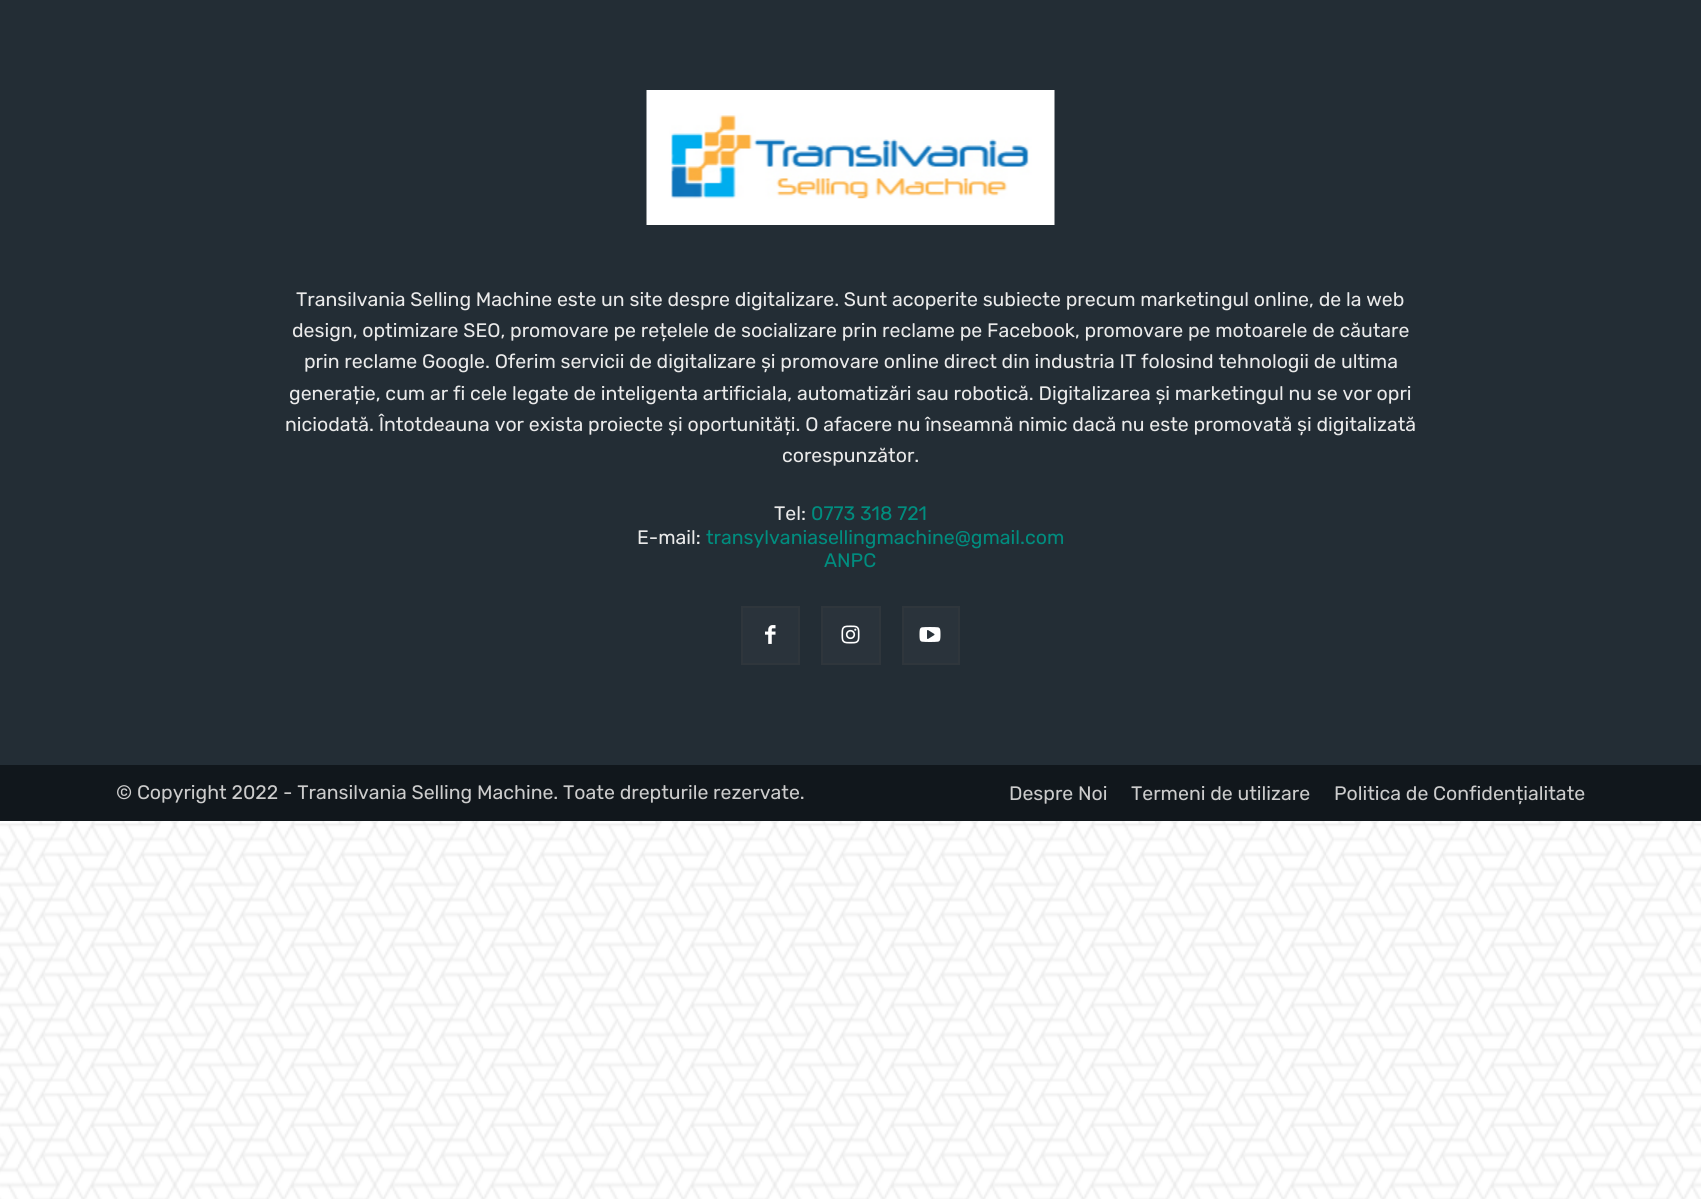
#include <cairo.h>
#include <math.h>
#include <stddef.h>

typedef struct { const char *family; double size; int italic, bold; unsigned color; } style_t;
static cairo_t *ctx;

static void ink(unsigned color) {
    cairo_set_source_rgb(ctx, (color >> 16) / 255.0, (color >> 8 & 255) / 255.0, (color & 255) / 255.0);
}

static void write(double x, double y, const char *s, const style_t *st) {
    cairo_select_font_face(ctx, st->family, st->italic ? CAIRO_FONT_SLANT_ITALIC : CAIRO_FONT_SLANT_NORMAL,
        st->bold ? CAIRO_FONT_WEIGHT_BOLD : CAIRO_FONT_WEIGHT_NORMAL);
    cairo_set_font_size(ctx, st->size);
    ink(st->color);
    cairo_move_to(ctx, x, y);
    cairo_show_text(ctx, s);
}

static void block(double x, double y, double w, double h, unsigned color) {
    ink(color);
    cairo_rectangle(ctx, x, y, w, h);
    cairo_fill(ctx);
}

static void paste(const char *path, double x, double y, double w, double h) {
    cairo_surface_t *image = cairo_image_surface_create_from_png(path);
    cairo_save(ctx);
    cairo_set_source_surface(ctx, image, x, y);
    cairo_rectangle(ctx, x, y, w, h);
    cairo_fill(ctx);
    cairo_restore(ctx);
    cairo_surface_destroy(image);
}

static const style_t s1 = {"Rubik", 19.5, 0, 0, 0xeaeaea};
static const style_t s2 = {"Rubik", 19.5, 0, 0, 0x008d7f};
static const style_t s3 = {"Rubik", 19.5, 0, 0, 0xcccccc};

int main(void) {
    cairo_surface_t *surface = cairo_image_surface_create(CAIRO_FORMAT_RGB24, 1701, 1199);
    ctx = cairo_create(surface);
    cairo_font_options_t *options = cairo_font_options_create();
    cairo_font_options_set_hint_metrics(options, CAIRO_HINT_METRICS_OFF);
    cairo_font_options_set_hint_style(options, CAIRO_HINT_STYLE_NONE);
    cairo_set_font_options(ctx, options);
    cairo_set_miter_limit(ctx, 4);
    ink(0xffffff);
    cairo_paint(ctx);
    paste("pic1.png", 0, 821, 1701, 378);
    block(0, 0, 1701, 765, 0x232d35);
    paste("pic2.png", 646, 90, 409, 135);
    write(296, 306, "Transilvania Selling Machine este un site despre digitalizare. Sunt acoperite subiecte precum marketingul online, de la web", &s1);
    write(292, 337, "design, optimizare SEO, promovare pe rețelele de socializare prin reclame pe Facebook, promovare pe motoarele de căutare", &s1);
    write(304, 368, "prin reclame Google. Oferim servicii de digitalizare și promovare online direct din industria IT folosind tehnologii de ultima", &s1);
    write(289, 400, "generație, cum ar fi cele legate de inteligenta artificiala, automatizări sau robotică. Digitalizarea și marketingul nu se vor opri", &s1);
    write(285, 431, "niciodată. Întotdeauna vor exista proiecte și oportunități. O afacere nu înseamnă nimic dacă nu este promovată și digitalizată", &s1);
    write(782, 462, "corespunzător.", &s1);
    write(774, 520, "Tel:", &s1);
    write(811, 520, "0773 318 721", &s2);
    write(637, 544, "E-mail:", &s1);
    write(706, 544, "transylvaniasellingmachine@gmail.com", &s2);
    write(824, 567, "ANPC", &s2);
    ink(0x2a333b);
    cairo_rectangle(ctx, 742, 607, 57, 57);
    cairo_fill_preserve(ctx);
    ink(0x2f363c);
    cairo_stroke(ctx);
    paste("pic3.png", 765, 625, 11, 19);
    ink(0x2a333b);
    cairo_rectangle(ctx, 822, 607, 58, 57);
    cairo_fill_preserve(ctx);
    ink(0x2f363c);
    cairo_stroke(ctx);
    paste("pic4.png", 841, 625, 19, 19);
    ink(0x2a333b);
    cairo_rectangle(ctx, 903, 607, 56, 57);
    cairo_fill_preserve(ctx);
    ink(0x2f363c);
    cairo_stroke(ctx);
    paste("pic5.png", 919, 627, 22, 15);
    block(0, 765, 1701, 56, 0x11171c);
    write(116, 799, "© Copyright 2022 - Transilvania Selling Machine. Toate drepturile rezervate.", &s3);
    write(1009, 800, "Despre Noi", &s3);
    write(1131, 800, "Termeni de utilizare", &s3);
    write(1334, 800, "Politica de Confidențialitate", &s3);
    cairo_surface_write_to_png(surface, "screenshot.png");
    cairo_font_options_destroy(options);
    cairo_destroy(ctx);
    cairo_surface_destroy(surface);
    return 0;
}
